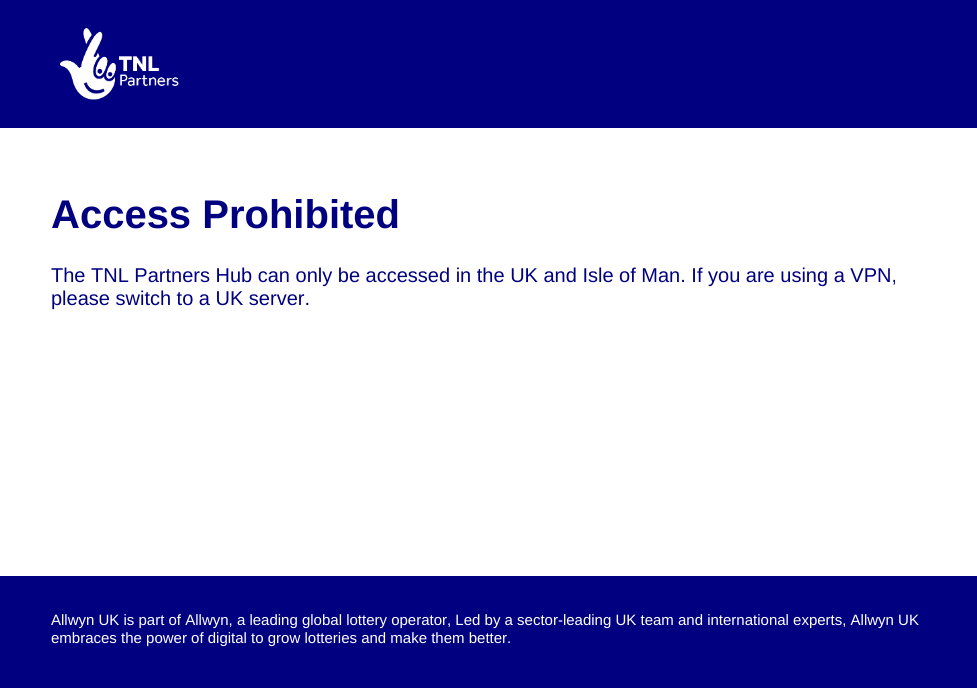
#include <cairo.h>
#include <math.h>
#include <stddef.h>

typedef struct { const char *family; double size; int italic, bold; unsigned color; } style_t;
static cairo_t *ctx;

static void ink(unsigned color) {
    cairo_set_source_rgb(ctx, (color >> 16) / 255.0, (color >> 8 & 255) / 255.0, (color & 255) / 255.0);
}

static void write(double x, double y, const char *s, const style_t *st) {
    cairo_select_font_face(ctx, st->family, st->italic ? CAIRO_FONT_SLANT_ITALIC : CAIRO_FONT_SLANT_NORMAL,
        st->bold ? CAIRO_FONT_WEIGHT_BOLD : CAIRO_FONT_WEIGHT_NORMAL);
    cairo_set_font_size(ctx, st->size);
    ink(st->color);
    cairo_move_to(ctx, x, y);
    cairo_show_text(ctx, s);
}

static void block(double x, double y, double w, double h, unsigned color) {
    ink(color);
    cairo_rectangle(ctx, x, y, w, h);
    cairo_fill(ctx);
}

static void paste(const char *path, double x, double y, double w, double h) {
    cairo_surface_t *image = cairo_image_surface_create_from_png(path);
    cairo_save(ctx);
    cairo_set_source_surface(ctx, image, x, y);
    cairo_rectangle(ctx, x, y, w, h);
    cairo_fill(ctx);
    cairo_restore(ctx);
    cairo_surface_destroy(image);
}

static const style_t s1 = {"Liberation Sans", 40, 0, 1, 0x000080};
static const style_t s2 = {"Liberation Sans", 20, 0, 0, 0x000080};
static const style_t s3 = {"Liberation Sans", 15, 0, 0, 0xffffff};

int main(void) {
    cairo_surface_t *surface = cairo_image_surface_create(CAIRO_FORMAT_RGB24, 977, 688);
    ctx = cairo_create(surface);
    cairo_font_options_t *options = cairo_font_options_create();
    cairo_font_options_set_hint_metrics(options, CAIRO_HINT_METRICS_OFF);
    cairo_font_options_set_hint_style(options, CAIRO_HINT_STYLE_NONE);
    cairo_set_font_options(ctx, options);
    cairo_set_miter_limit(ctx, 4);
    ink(0xffffff);
    cairo_paint(ctx);
    block(0, 0, 977, 128, 0x000080);
    paste("pic1.png", 60, 28, 119, 72);
    write(51, 228, "Access Prohibited", &s1);
    write(51, 282, "The TNL Partners Hub can only be accessed in the UK and Isle of Man. If you are using a VPN,", &s2);
    write(51, 305, "please switch to a UK server.", &s2);
    block(0, 576, 977, 112, 0x000080);
    write(51, 625, "Allwyn UK is part of Allwyn, a leading global lottery operator, Led by a sector-leading UK team and international experts, Allwyn UK", &s3);
    write(51, 643, "embraces the power of digital to grow lotteries and make them better.", &s3);
    cairo_surface_write_to_png(surface, "screenshot.png");
    cairo_font_options_destroy(options);
    cairo_destroy(ctx);
    cairo_surface_destroy(surface);
    return 0;
}
